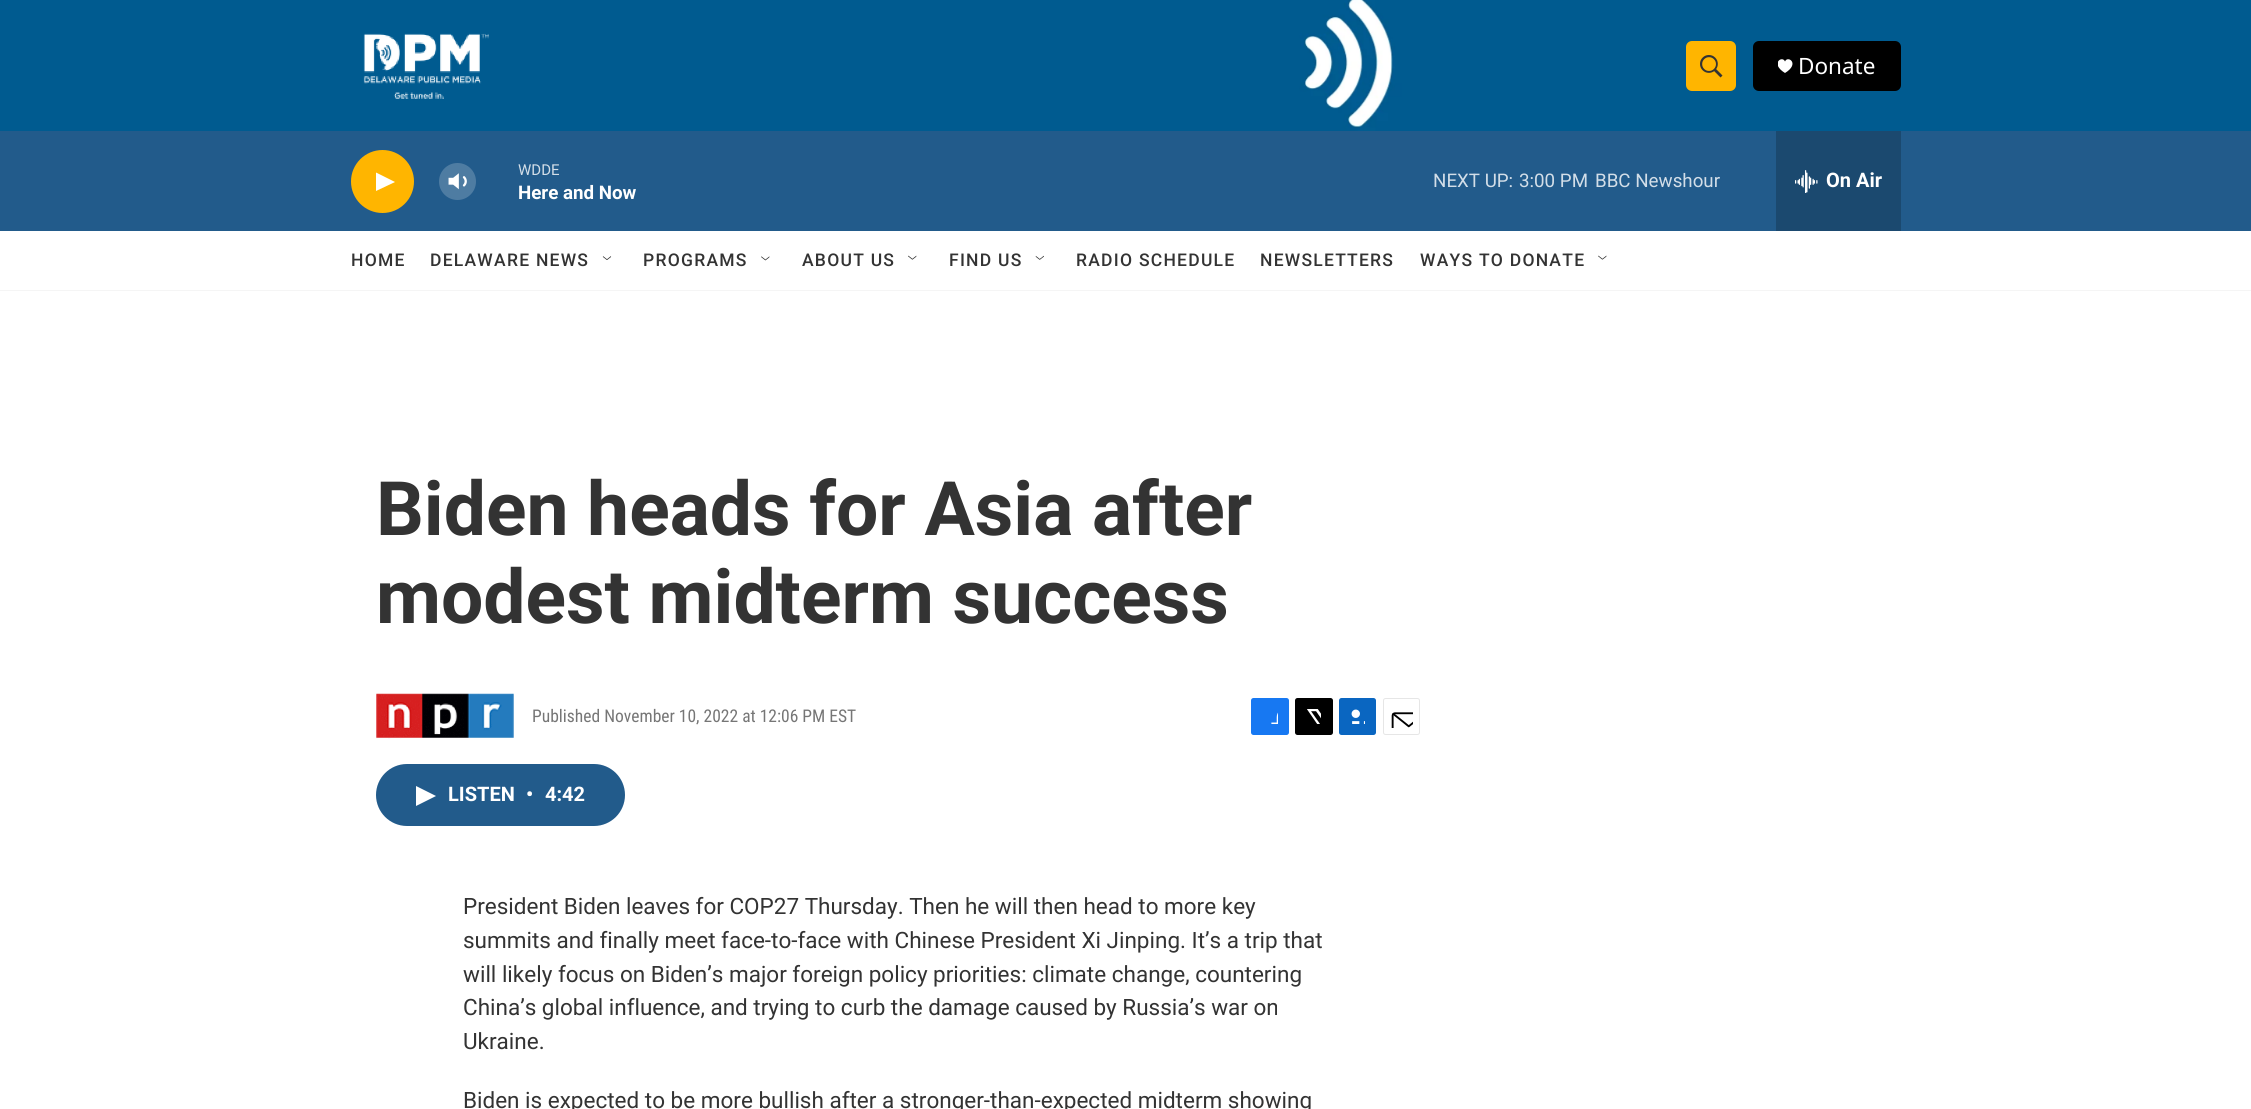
#include <cairo.h>
#include <math.h>
#include <stddef.h>

typedef struct { const char *family; double size; int italic, bold; unsigned color; } style_t;
static cairo_t *ctx;

static void ink(unsigned color) {
    cairo_set_source_rgb(ctx, (color >> 16) / 255.0, (color >> 8 & 255) / 255.0, (color & 255) / 255.0);
}

static void write(double x, double y, const char *s, const style_t *st) {
    cairo_select_font_face(ctx, st->family, st->italic ? CAIRO_FONT_SLANT_ITALIC : CAIRO_FONT_SLANT_NORMAL,
        st->bold ? CAIRO_FONT_WEIGHT_BOLD : CAIRO_FONT_WEIGHT_NORMAL);
    cairo_set_font_size(ctx, st->size);
    ink(st->color);
    cairo_move_to(ctx, x, y);
    cairo_show_text(ctx, s);
}

static void write_spaced(double x, double y, const char *s, double letter, double word) {
    cairo_move_to(ctx, x, y);
    while (*s) {
        char ch[5] = {0};
        int n = 0;
        do ch[n++] = *s++; while ((*s & 0xC0) == 0x80);
        cairo_show_text(ctx, ch);
        cairo_rel_move_to(ctx, letter + word * (*ch == ' '), 0);
    }
}

static void block(double x, double y, double w, double h, unsigned color) {
    ink(color);
    cairo_rectangle(ctx, x, y, w, h);
    cairo_fill(ctx);
}

static void round_path(double x, double y, double w, double h, double r) {
    cairo_new_sub_path(ctx);
    cairo_arc(ctx, x + w - r, y + h - r, r, 0, M_PI / 2);
    cairo_arc(ctx, x + r, y + h - r, r, M_PI / 2, M_PI);
    cairo_arc(ctx, x + r, y + r, r, M_PI, 1.5 * M_PI);
    cairo_arc(ctx, x + w - r, y + r, r, 1.5 * M_PI, 2 * M_PI);
    cairo_close_path(ctx);
}

static void paste(const char *path, double x, double y, double w, double h) {
    cairo_surface_t *image = cairo_image_surface_create_from_png(path);
    cairo_save(ctx);
    cairo_set_source_surface(ctx, image, x, y);
    cairo_rectangle(ctx, x, y, w, h);
    cairo_fill(ctx);
    cairo_restore(ctx);
    cairo_surface_destroy(image);
}

static const style_t s1 = {"Noto Sans", 22.5, 0, 0, 0xffffff};
static const style_t s2 = {"Roboto", 15, 0, 0, 0xd3dee8};
static const style_t s3 = {"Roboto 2", 18.75, 0, 1, 0xffffff};
static const style_t s4 = {"Roboto", 18.75, 0, 0, 0xd3dee8};
static const style_t s5 = {"Roboto 2", 20, 0, 1, 0xffffff};
static const style_t s6 = {"Roboto", 75, 0, 1, 0x333333};
static const style_t s7 = {"Roboto Condensed", 17.5, 0, 0, 0x767676};
static const style_t s8 = {"Roboto", 22.5, 0, 0, 0x333333};

int main(void) {
    cairo_surface_t *surface = cairo_image_surface_create(CAIRO_FORMAT_RGB24, 2251, 1109);
    ctx = cairo_create(surface);
    cairo_font_options_t *options = cairo_font_options_create();
    cairo_font_options_set_hint_metrics(options, CAIRO_HINT_METRICS_OFF);
    cairo_font_options_set_hint_style(options, CAIRO_HINT_STYLE_NONE);
    cairo_set_font_options(ctx, options);
    cairo_set_miter_limit(ctx, 4);
    ink(0xffffff);
    cairo_paint(ctx);
    block(0, 290, 2251, 1, 0xf5f5f5);
    paste("pic1.png", 0, 0, 2251, 131);
    paste("pic2.png", 363, 33, 126, 66);
    ink(0xffb500);
    round_path(1686, 41, 50, 50, 6);
    cairo_fill(ctx);
    paste("pic3.png", 1700, 55, 23, 23);
    ink(0x000000);
    round_path(1753, 41, 148, 50, 6);
    cairo_fill(ctx);
    cairo_save(ctx);
    cairo_rectangle(ctx, 1778, 59, 15, 15);
    cairo_clip(ctx);
    ink(0xffffff);
    cairo_new_path(ctx);
    cairo_move_to(ctx, 1785, 61.5);
    cairo_curve_to(ctx, 1782.5, 55, 1769.5, 63.5, 1785, 73);
    cairo_curve_to(ctx, 1800.5, 63.5, 1787.5, 55, 1785, 61.5);
    cairo_close_path(ctx);
    cairo_fill(ctx);
    cairo_restore(ctx);
    write(1798, 74, "Donate", &s1);
    block(0, 131, 2251, 100, 0x225b8b);
    ink(0xffb500);
    cairo_new_path(ctx);
    cairo_arc(ctx, 382.5, 181.5, 31.5, 0, 2 * M_PI);
    cairo_fill(ctx);
    ink(0xffffff);
    cairo_new_path(ctx);
    cairo_move_to(ctx, 376, 172.5);
    cairo_line_to(ctx, 395, 182);
    cairo_line_to(ctx, 376, 191);
    cairo_close_path(ctx);
    cairo_fill(ctx);
    paste("pic4.png", 448, 173, 19, 17);
    cairo_set_source_rgba(ctx, 1, 1, 1, 0.2);
    cairo_arc(ctx, 457.5, 181.5, 18.5, 0, 2 * M_PI);
    cairo_fill(ctx);
    write(518, 175, "WDDE", &s2);
    write(518, 199, "Here and Now", &s3);
    write(1433, 187, "NEXT UP:", &s4);
    write(1519, 187, "3:00 PM", &s4);
    write(1595, 187, "BBC Newshour", &s4);
    block(1776, 131, 125, 100, 0x1b496f);
    paste("pic5.png", 1795, 170, 23, 23);
    write(1826, 187, "On Air", &s5);
    cairo_select_font_face(ctx, "Roboto Medium", CAIRO_FONT_SLANT_NORMAL, CAIRO_FONT_WEIGHT_NORMAL);
    cairo_set_font_size(ctx, 17.5);
    ink(0x333333);
    write_spaced(351, 266, "HOME", 1.25, 0);
    write_spaced(430, 266, "DELAWARE NEWS", 1.25, 0);
    paste("pic6.png", 602, 256, 10, 4);
    write_spaced(643, 266, "PROGRAMS", 1.25, 0);
    paste("pic7.png", 761, 256, 9, 5);
    write_spaced(802, 266, "ABOUT US", 1.25, 0);
    paste("pic8.png", 908, 255, 9, 5);
    write_spaced(949, 266, "FIND US", 1.25, 0);
    paste("pic9.png", 1035, 255, 9, 5);
    write_spaced(1076, 266, "RADIO SCHEDULE", 1.25, 0);
    write_spaced(1260, 266, "NEWSLETTERS", 1.25, 0);
    write_spaced(1420, 266, "WAYS TO DONATE", 1.25, 0);
    paste("pic10.png", 1598, 255, 9, 5);
    write(376, 535, "Biden heads for Asia after", &s6);
    write(376, 623, "modest midterm success", &s6);
    paste("pic11.png", 376, 693, 138, 46);
    write(532, 722, "Published November 10, 2022 at 12:06 PM EST", &s7);
    ink(0x1778f2);
    round_path(1251, 698, 38, 37, 2.5);
    cairo_fill(ctx);
    paste("pic12.png", 1271, 712, 7, 12);
    ink(0x000000);
    round_path(1295, 698, 38, 37, 2.5);
    cairo_fill(ctx);
    paste("pic13.png", 1307, 709, 14, 15);
    ink(0x0a66c1);
    round_path(1339, 698, 37, 37, 2.5);
    cairo_fill(ctx);
    paste("pic14.png", 1351, 709, 14, 15);
    round_path(1383.5, 698.5, 36, 36, 2);
    ink(0xe6e6e6);
    cairo_set_line_width(ctx, 1);
    cairo_stroke(ctx);
    paste("pic15.png", 1391, 712, 22, 16);
    ink(0x225b8b);
    round_path(376, 764, 249, 62, 31);
    cairo_fill(ctx);
    ink(0xffffff);
    cairo_new_path(ctx);
    cairo_move_to(ctx, 416, 786);
    cairo_line_to(ctx, 436, 796);
    cairo_line_to(ctx, 416, 806);
    cairo_close_path(ctx);
    cairo_fill(ctx);
    write(448, 801, "LISTEN", &s5);
    write(526, 801, "•", &s5);
    write(545, 801, "4:42", &s5);
    write(463, 914, "President Biden leaves for COP27 Thursday. Then he will then head to more key", &s8);
    write(463, 948, "summits and finally meet face-to-face with Chinese President Xi Jinping. It’s a trip that", &s8);
    write(463, 982, "will likely focus on Biden’s major foreign policy priorities: climate change, countering", &s8);
    write(463, 1015, "China’s global influence, and trying to curb the damage caused by Russia’s war on", &s8);
    write(463, 1049, "Ukraine.", &s8);
    write(463, 1108, "Biden is expected to be more bullish after a stronger-than-expected midterm showing", &s8);
    cairo_surface_write_to_png(surface, "screenshot.png");
    cairo_font_options_destroy(options);
    cairo_destroy(ctx);
    cairo_surface_destroy(surface);
    return 0;
}
